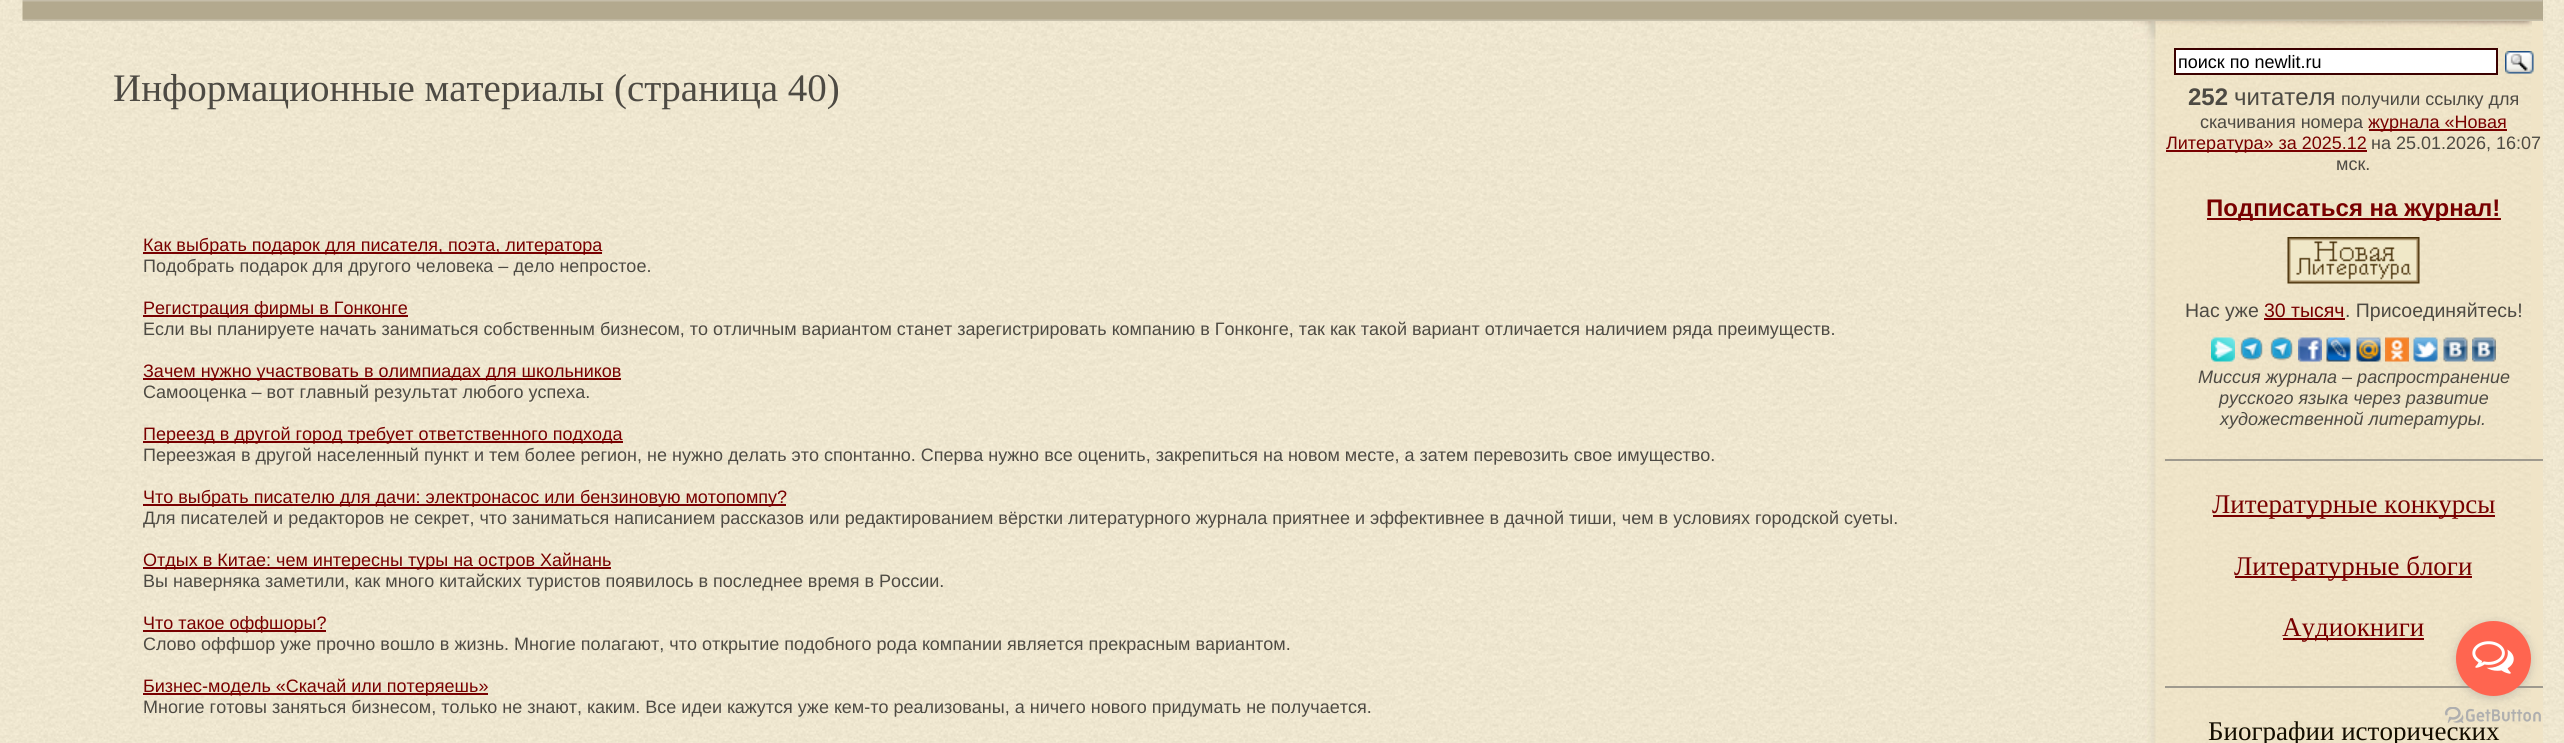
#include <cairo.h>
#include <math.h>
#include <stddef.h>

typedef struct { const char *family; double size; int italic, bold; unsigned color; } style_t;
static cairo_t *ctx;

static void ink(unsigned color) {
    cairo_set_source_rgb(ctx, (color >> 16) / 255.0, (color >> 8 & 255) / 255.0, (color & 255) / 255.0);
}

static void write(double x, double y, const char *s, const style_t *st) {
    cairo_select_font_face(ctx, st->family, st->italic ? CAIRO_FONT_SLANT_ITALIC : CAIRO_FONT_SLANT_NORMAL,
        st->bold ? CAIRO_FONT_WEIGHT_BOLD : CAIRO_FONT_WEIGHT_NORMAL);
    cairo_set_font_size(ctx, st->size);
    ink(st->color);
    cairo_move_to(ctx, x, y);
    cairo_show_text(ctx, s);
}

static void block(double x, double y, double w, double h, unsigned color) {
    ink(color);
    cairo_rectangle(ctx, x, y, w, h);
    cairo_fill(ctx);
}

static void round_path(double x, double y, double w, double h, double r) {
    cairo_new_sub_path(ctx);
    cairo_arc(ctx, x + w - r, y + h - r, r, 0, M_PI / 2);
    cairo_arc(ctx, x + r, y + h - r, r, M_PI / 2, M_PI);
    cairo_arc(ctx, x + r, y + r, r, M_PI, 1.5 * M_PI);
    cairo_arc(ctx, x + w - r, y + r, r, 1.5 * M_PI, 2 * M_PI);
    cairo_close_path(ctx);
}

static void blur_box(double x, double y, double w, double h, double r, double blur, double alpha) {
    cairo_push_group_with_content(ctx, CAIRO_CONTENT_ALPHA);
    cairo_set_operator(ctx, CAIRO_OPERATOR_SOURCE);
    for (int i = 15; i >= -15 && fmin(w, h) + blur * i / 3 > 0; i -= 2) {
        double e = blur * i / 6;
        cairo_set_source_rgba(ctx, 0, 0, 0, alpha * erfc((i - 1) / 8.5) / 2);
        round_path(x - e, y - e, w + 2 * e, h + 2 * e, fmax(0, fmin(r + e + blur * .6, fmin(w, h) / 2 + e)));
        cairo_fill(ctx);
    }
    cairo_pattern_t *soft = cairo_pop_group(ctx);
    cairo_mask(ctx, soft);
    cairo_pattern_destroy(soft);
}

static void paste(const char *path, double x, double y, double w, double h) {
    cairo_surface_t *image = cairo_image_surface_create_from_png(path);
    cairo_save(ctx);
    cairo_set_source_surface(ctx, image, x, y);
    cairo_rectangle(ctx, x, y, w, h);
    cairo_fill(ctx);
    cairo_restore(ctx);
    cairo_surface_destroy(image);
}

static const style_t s1 = {"Liberation Serif", 39, 0, 0, 0x4d4a43};
static const style_t s2 = {"Liberation Sans", 18, 0, 0, 0x780000};
static const style_t s3 = {"Liberation Sans", 18, 0, 0, 0x4d4a43};
static const style_t s4 = {"Liberation Sans", 18, 0, 0, 0x000000};
static const style_t s5 = {"Liberation Sans", 24, 0, 1, 0x4d4a43};
static const style_t s6 = {"Liberation Sans", 24, 0, 0, 0x4d4a43};
static const style_t s7 = {"Liberation Sans", 24, 0, 1, 0x780000};
static const style_t s8 = {"Liberation Sans", 19.5, 0, 0, 0x4d4a43};
static const style_t s9 = {"Liberation Sans", 19.5, 0, 0, 0x780000};
static const style_t s10 = {"Liberation Sans", 18, 1, 0, 0x4d4a43};
static const style_t s11 = {"Liberation Serif", 27, 0, 0, 0x780000};
static const style_t s12 = {"Liberation Serif", 27, 0, 0, 0x130d00};

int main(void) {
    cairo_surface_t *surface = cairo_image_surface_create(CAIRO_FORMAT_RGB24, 2564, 743);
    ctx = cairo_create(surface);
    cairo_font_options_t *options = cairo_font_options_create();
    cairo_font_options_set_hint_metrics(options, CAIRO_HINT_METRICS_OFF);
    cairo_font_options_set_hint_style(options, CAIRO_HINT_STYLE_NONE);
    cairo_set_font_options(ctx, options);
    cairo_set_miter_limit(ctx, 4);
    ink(0xffffff);
    cairo_paint(ctx);
    paste("pic1.png", 0, 0, 2564, 743);
    block(2542, 0, 1, 21, 0xb3a98e);
    paste("pic2.png", 22, 0, 2521, 21);
    write(113, 101, "Информационные материалы (страница 40)", &s1);
    block(143, 252, 459, 2, 0x780000);
    write(143, 251, "Как выбрать подарок для писателя, поэта, литератора", &s2);
    write(143, 272, "Подобрать подарок для другого человека – дело непростое.", &s3);
    block(143, 315, 265, 2, 0x780000);
    write(143, 314, "Регистрация фирмы в Гонконге", &s2);
    write(143, 335, "Если вы планируете начать заниматься собственным бизнесом, то отличным вариантом станет зарегистрировать компанию в Гонконге, так как такой вариант отличается наличием ряда преимуществ.", &s3);
    block(143, 378, 478, 2, 0x780000);
    write(143, 377, "Зачем нужно участвовать в олимпиадах для школьников", &s2);
    write(143, 398, "Самооценка – вот главный результат любого успеха.", &s3);
    block(143, 441, 480, 2, 0x780000);
    write(143, 440, "Переезд в другой город требует ответственного подхода", &s2);
    write(143, 461, "Переезжая в другой населенный пункт и тем более регион, не нужно делать это спонтанно. Сперва нужно все оценить, закрепиться на новом месте, а затем перевозить свое имущество.", &s3);
    block(143, 504, 643, 2, 0x780000);
    write(143, 503, "Что выбрать писателю для дачи: электронасос или бензиновую мотопомпу?", &s2);
    write(143, 524, "Для писателей и редакторов не секрет, что заниматься написанием рассказов или редактированием вёрстки литературного журнала приятнее и эффективнее в дачной тиши, чем в условиях городской суеты.", &s3);
    block(143, 567, 468, 2, 0x780000);
    write(143, 566, "Отдых в Китае: чем интересны туры на остров Хайнань", &s2);
    write(143, 587, "Вы наверняка заметили, как много китайских туристов появилось в последнее время в России.", &s3);
    block(143, 630, 183, 2, 0x780000);
    write(143, 629, "Что такое оффшоры?", &s2);
    write(143, 650, "Слово оффшор уже прочно вошло в жизнь. Многие полагают, что открытие подобного рода компании является прекрасным вариантом.", &s3);
    block(143, 693, 345, 2, 0x780000);
    write(143, 692, "Бизнес-модель «Скачай или потеряешь»", &s2);
    write(143, 713, "Многие готовы заняться бизнесом, только не знают, каким. Все идеи кажутся уже кем-то реализованы, а ничего нового придумать не получается.", &s3);
    block(2531, 21, 12, 722, 0xf0e4c7);
    paste("pic3.png", 2133, 39, 398, 704);
    paste("pic4.png", 2133, 21, 399, 18);
    ink(0xffffff);
    cairo_rectangle(ctx, 2175, 49, 322, 25);
    cairo_fill_preserve(ctx);
    ink(0x3b0000);
    cairo_stroke(ctx);
    write(2178, 68, "поиск по newlit.ru", &s4);
    paste("pic5.png", 2505, 51, 29, 23);
    write(2188, 105, "252", &s5);
    write(2234, 105, "читателя", &s6);
    write(2341, 105, "получили ссылку для", &s3);
    write(2200, 128, "скачивания номера", &s3);
    block(2369, 129, 138, 2, 0x780000);
    write(2368, 128, "журнала «Новая", &s2);
    block(2166, 150, 201, 2, 0x780000);
    write(2166, 149, "Литература» за 2025.12", &s2);
    write(2371, 149, "на 25.01.2026, 16:07", &s3);
    write(2336, 170, "мск.", &s3);
    block(2207, 218, 294, 2, 0x780000);
    write(2206, 216, "Подписаться на журнал!", &s7);
    paste("pic6.png", 2287, 237, 133, 47);
    write(2185, 317, "Нас уже", &s8);
    write(2264, 317, "30 тысяч", &s9);
    write(2345, 317, ". Присоединяйтесь!", &s8);
    block(2264, 318, 81, 2, 0x780000);
    paste("pic7.png", 2211, 337, 24, 25);
    paste("pic8.png", 2240, 337, 23, 24);
    paste("pic9.png", 2270, 337, 23, 24);
    paste("pic10.png", 2298, 337, 24, 25);
    paste("pic11.png", 2326, 337, 25, 25);
    paste("pic12.png", 2356, 337, 25, 25);
    paste("pic13.png", 2385, 337, 24, 25);
    paste("pic14.png", 2413, 337, 25, 25);
    paste("pic15.png", 2443, 337, 25, 25);
    paste("pic16.png", 2472, 337, 24, 25);
    write(2198, 383, "Миссия журнала – распространение", &s10);
    write(2219, 404, "русского языка через развитие", &s10);
    write(2220, 425, "художественной литературы.", &s10);
    block(2165, 459, 378, 2, 0x9f9a8e);
    block(2213, 515, 282, 2, 0x780000);
    write(2212, 513, "Литературные конкурсы", &s11);
    block(2235, 576, 237, 2, 0x780000);
    write(2234, 575, "Литературные блоги", &s11);
    block(2283, 638, 141, 2, 0x780000);
    write(2282, 636, "Аудиокниги", &s11);
    block(2165, 686, 378, 2, 0x9f9a8e);
    write(2208, 740, "Биографии исторических", &s12);
    paste("pic18.png", 2445, 707, 96, 16);
    ink(0x888888);
    blur_box(2456, 623, 75, 75, 37.5, 5, 0.4);
    ink(0xff6550);
    cairo_arc(ctx, 2493.5, 658.5, 37.5, 0, 2 * M_PI);
    cairo_fill(ctx);
    paste("pic17.png", 2472, 641, 42, 33);
    cairo_surface_write_to_png(surface, "screenshot.png");
    cairo_font_options_destroy(options);
    cairo_destroy(ctx);
    cairo_surface_destroy(surface);
    return 0;
}
